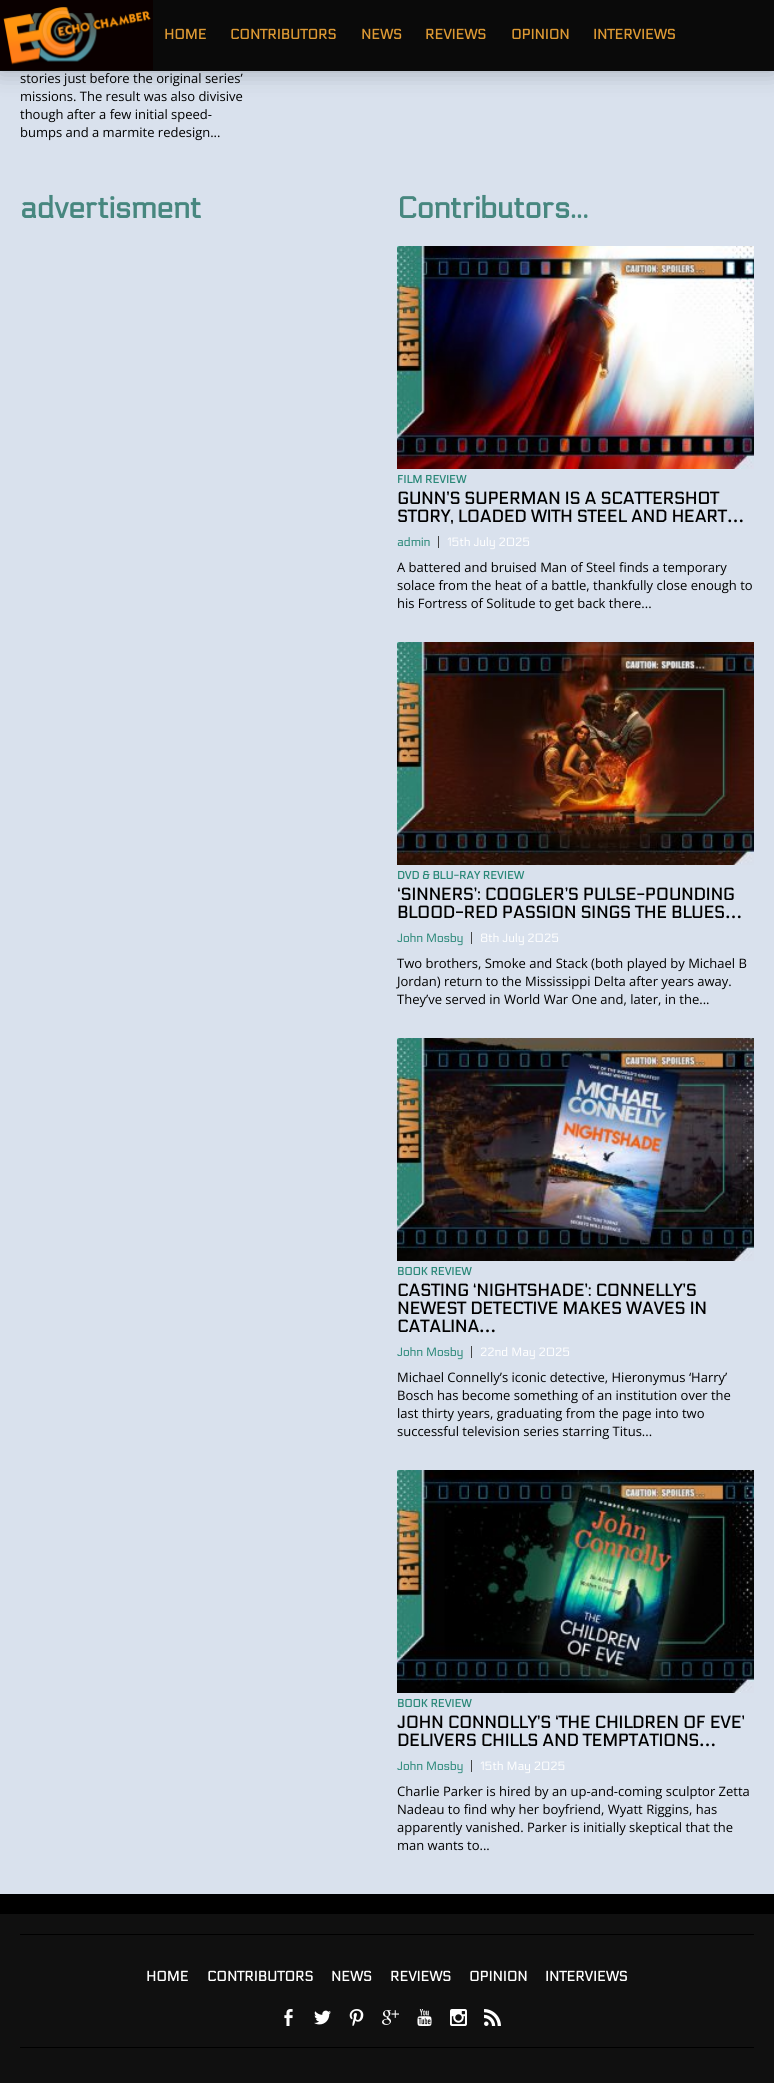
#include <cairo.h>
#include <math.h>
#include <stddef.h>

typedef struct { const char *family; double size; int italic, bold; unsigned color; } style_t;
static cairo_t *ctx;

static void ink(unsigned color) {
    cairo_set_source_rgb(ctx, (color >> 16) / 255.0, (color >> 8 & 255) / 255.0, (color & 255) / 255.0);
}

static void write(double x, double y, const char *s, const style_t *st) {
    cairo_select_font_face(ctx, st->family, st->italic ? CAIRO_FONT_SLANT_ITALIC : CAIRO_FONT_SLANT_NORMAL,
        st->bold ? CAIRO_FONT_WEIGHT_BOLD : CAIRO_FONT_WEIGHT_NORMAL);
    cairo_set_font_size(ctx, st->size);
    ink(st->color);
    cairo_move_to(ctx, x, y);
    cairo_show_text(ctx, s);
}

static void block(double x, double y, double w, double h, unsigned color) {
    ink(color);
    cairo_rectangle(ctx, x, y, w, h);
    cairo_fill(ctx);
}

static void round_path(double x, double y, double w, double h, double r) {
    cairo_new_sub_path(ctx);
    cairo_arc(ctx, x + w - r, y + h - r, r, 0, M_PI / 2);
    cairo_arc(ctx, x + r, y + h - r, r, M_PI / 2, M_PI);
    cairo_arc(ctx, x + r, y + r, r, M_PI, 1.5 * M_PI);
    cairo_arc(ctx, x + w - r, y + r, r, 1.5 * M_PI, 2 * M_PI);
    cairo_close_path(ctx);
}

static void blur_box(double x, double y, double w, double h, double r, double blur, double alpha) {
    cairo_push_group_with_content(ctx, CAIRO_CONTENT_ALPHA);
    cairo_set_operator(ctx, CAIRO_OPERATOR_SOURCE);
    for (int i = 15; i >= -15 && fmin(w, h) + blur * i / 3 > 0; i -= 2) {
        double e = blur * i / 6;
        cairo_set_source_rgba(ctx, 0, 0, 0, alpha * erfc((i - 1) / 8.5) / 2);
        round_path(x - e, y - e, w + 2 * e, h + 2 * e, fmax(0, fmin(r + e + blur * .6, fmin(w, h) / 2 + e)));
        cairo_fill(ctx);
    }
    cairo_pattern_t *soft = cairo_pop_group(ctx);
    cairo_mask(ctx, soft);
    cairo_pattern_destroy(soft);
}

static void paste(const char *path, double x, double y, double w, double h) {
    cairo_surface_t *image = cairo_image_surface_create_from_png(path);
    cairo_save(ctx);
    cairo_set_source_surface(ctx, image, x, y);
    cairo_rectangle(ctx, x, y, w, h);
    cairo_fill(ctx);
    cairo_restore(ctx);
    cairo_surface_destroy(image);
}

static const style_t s1 = {"Electrolize", 14, 0, 1, 0xdd9933};
static const style_t s2 = {"Open Sans", 13, 0, 0, 0x000000};
static const style_t s3 = {"Electrolize", 30, 0, 1, 0x47877f};
static const style_t s4 = {"Electrolize", 11, 0, 1, 0x288777};
static const style_t s5 = {"Electrolize", 17, 0, 1, 0x000000};
static const style_t s6 = {"Liberation Serif", 17, 0, 1, 0x000000};
static const style_t s7 = {"Electrolize", 12, 0, 0, 0x288777};
static const style_t s8 = {"Electrolize", 12, 0, 0, 0xffffff};
static const style_t s9 = {"Electrolize", 14, 0, 1, 0xffffff};

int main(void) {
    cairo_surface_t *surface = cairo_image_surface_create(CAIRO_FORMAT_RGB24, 774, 2083);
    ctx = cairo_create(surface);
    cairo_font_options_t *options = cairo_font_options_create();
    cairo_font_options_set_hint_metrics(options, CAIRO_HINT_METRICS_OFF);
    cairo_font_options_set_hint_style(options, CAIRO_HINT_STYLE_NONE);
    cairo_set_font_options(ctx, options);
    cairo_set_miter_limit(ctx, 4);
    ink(0x000000);
    cairo_paint(ctx);
    block(0, 71, 774, 1823, 0xd9e1ed);
    ink(0x000000);
    blur_box(0, 0, 774, 71, 0, 12, 0.25);
    block(0, 0, 774, 71, 0x0a0a0a);
    block(0, 0, 153, 70, 0x0a0000);
    paste("pic1.png", 3, 7, 148, 58);
    write(164, 39, "HOME", &s1);
    write(230, 39, "CONTRIBUTORS", &s1);
    write(361, 39, "NEWS", &s1);
    write(425, 39, "REVIEWS", &s1);
    write(511, 39, "OPINION", &s1);
    write(593, 39, "INTERVIEWS", &s1);
    write(20, 83, "stories just before the original series’", &s2);
    write(20, 101, "missions. The result was also divisive", &s2);
    write(20, 119, "though after a few initial speed-", &s2);
    write(20, 137, "bumps and a marmite redesign...", &s2);
    write(20, 218, "advertisment", &s3);
    write(397, 218, "Contributors...", &s3);
    paste("pic2.png", 397, 246, 357, 223);
    write(397, 483, "FILM REVIEW", &s4);
    write(397, 504, "GUNN’S SUPERMAN IS A SCATTERSHOT", &s5);
    write(397, 522, "STORY, LOADED WITH STEEL AND HEART", &s5);
    write(727, 522, "…", &s6);
    block(438, 536, 1, 12, 0x444444);
    write(397, 546, "admin", &s7);
    write(447, 546, "15th July 2025", &s8);
    write(397, 572, "A battered and bruised Man of Steel finds a temporary", &s2);
    write(397, 590, "solace from the heat of a battle, thankfully close enough to", &s2);
    write(397, 608, "his Fortress of Solitude to get back there...", &s2);
    paste("pic3.png", 397, 642, 357, 223);
    write(397, 879, "DVD & BLU-RAY REVIEW", &s4);
    write(397, 900, "‘SINNERS’: COOGLER’S PULSE-POUNDING", &s5);
    write(397, 918, "BLOOD-RED PASSION SINGS THE BLUES", &s5);
    write(725, 918, "…", &s6);
    block(471, 932, 1, 12, 0x444444);
    write(397, 942, "John Mosby", &s7);
    write(480, 942, "8th July 2025", &s8);
    write(397, 968, "Two brothers, Smoke and Stack (both played by Michael B", &s2);
    write(397, 986, "Jordan) return to the Mississippi Delta after years away.", &s2);
    write(397, 1004, "They’ve served in World War One and, later, in the...", &s2);
    paste("pic4.png", 397, 1038, 357, 223);
    write(397, 1275, "BOOK REVIEW", &s4);
    write(397, 1296, "CASTING ‘NIGHTSHADE’: CONNELLY’S", &s5);
    write(397, 1314, "NEWEST DETECTIVE MAKES WAVES IN", &s5);
    write(397, 1332, "CATALINA", &s5);
    write(479, 1332, "…", &s6);
    block(471, 1346, 1, 12, 0x444444);
    write(397, 1356, "John Mosby", &s7);
    write(480, 1356, "22nd May 2025", &s8);
    write(397, 1382, "Michael Connelly’s iconic detective, Hieronymus ‘Harry’", &s2);
    write(397, 1400, "Bosch has become something of an institution over the", &s2);
    write(397, 1418, "last thirty years, graduating from the page into two", &s2);
    write(397, 1436, "successful television series starring Titus...", &s2);
    paste("pic5.png", 397, 1470, 357, 223);
    write(397, 1707, "BOOK REVIEW", &s4);
    write(397, 1728, "JOHN CONNOLLY’S ‘THE CHILDREN OF EVE’", &s5);
    write(397, 1746, "DELIVERS CHILLS AND TEMPTATIONS", &s5);
    write(699, 1746, "…", &s6);
    block(471, 1760, 1, 12, 0x444444);
    write(397, 1770, "John Mosby", &s7);
    write(480, 1770, "15th May 2025", &s8);
    write(397, 1796, "Charlie Parker is hired by an up-and-coming sculptor Zetta", &s2);
    write(397, 1814, "Nadeau to find why her boyfriend, Wyatt Riggins, has", &s2);
    write(397, 1832, "apparently vanished. Parker is initially skeptical that the", &s2);
    write(397, 1850, "man wants to...", &s2);
    block(0, 1914, 774, 169, 0x101010);
    block(20, 1934, 734, 1, 0x000000);
    block(20, 2047, 734, 1, 0x000000);
    write(146, 1981, "HOME", &s9);
    write(207, 1981, "CONTRIBUTORS", &s9);
    write(331, 1981, "NEWS", &s9);
    write(390, 1981, "REVIEWS", &s9);
    write(469, 1981, "OPINION", &s9);
    write(545, 1981, "INTERVIEWS", &s9);
    paste("pic6.png", 284, 2009, 9, 17);
    paste("pic7.png", 314, 2010, 17, 15);
    paste("pic8.png", 349, 2009, 15, 17);
    paste("pic9.png", 382, 2010, 17, 15);
    paste("pic10.png", 417, 2009, 15, 17);
    paste("pic11.png", 450, 2009, 17, 17);
    paste("pic12.png", 484, 2009, 17, 17);
    cairo_surface_write_to_png(surface, "screenshot.png");
    cairo_font_options_destroy(options);
    cairo_destroy(ctx);
    cairo_surface_destroy(surface);
    return 0;
}
